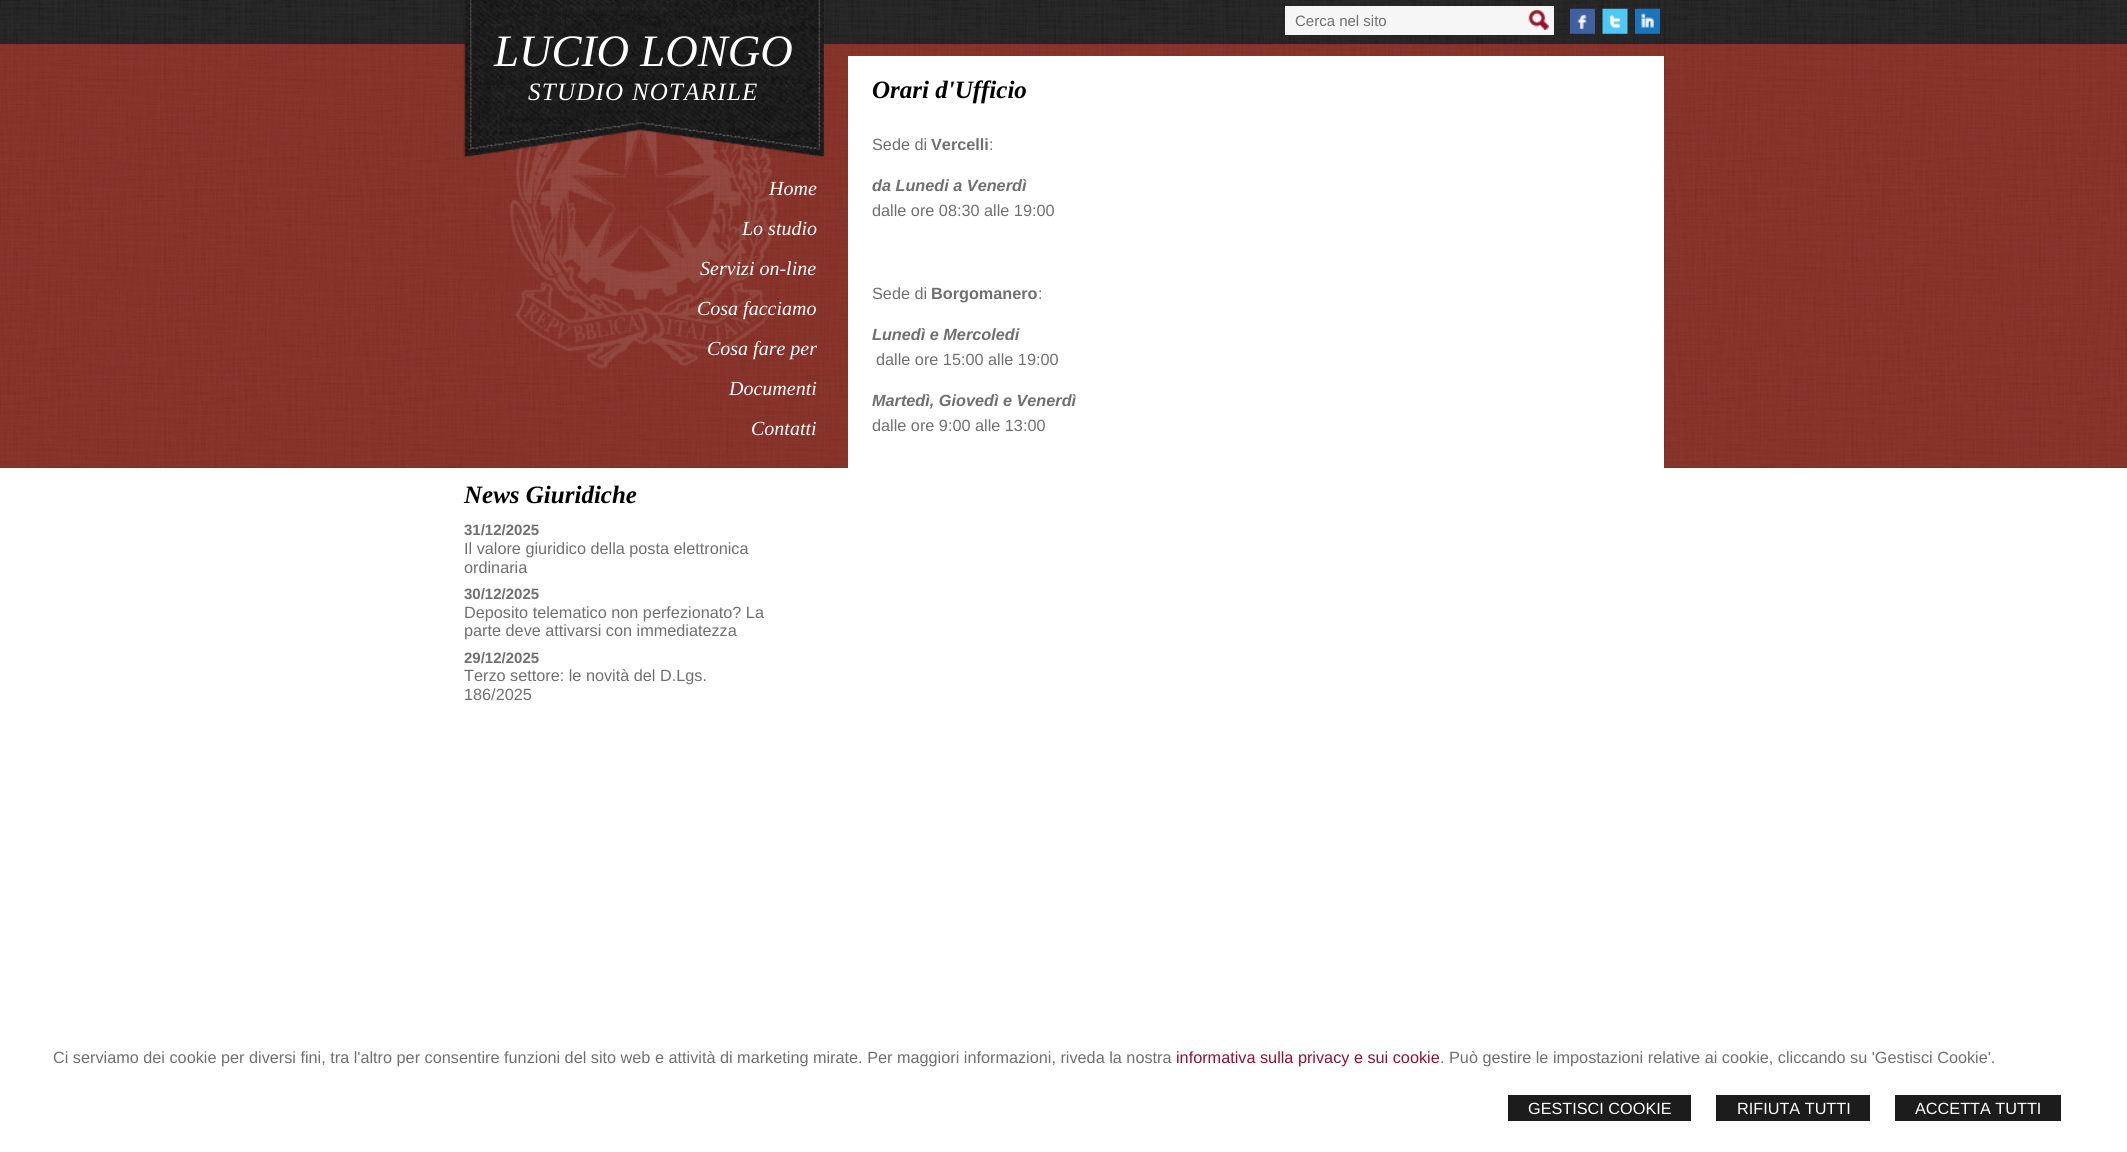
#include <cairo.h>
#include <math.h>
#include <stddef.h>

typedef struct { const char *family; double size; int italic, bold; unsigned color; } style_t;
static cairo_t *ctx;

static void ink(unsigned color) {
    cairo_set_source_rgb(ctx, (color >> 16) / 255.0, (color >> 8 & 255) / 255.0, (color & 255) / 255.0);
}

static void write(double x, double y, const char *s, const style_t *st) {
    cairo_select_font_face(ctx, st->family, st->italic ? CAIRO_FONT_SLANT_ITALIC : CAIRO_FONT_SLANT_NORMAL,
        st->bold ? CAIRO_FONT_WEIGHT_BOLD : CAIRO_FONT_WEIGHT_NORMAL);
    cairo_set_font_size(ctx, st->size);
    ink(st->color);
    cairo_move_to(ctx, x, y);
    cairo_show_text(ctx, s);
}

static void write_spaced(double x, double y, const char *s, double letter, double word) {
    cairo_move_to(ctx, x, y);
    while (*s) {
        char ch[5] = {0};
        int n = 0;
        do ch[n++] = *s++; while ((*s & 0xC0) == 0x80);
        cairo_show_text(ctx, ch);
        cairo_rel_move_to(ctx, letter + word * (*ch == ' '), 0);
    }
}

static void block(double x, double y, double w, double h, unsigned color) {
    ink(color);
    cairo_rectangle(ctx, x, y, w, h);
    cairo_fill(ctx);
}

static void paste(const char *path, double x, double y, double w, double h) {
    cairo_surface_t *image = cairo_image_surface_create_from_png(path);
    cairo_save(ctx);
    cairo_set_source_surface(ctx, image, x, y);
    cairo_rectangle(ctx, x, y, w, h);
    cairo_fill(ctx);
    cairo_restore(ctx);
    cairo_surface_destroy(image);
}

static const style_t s1 = {"Liberation Sans", 15, 0, 0, 0x706f6f};
static const style_t s2 = {"Liberation Serif", 45, 1, 0, 0xffffff};
static const style_t s3 = {"Liberation Serif", 20, 1, 0, 0xffffff};
static const style_t s4 = {"Liberation Serif", 25, 1, 1, 0x000000};
static const style_t s5 = {"Liberation Sans", 16.25, 0, 0, 0x706f6f};
static const style_t s6 = {"Liberation Sans", 16.25, 0, 1, 0x706f6f};
static const style_t s7 = {"Liberation Sans", 16.25, 1, 1, 0x706f6f};
static const style_t s8 = {"Liberation Sans", 15, 0, 1, 0x706f6f};
static const style_t s9 = {"Liberation Sans", 16.25, 0, 0, 0x90122d};
static const style_t s10 = {"Liberation Sans", 16.25, 0, 0, 0xffffff};

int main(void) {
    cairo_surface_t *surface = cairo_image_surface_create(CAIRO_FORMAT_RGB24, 2127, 1152);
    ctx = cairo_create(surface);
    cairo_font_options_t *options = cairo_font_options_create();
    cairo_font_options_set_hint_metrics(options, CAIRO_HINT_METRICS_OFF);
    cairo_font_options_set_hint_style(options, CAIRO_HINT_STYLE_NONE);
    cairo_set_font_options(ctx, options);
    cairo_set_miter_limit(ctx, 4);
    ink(0xffffff);
    cairo_paint(ctx);
    block(0, 0, 2127, 44, 0x1c1c1c);
    paste("pic1.png", 0, 0, 2127, 44);
    block(1285, 6, 269, 29, 0xf6f6f6);
    write(1295, 26, "Cerca nel sito", &s1);
    paste("pic2.png", 1528, 10, 21, 20);
    paste("pic3.png", 1570, 8, 25, 26);
    paste("pic4.png", 1602, 8, 26, 26);
    paste("pic5.png", 1635, 8, 25, 26);
    block(0, 44, 2127, 424, 0x812a21);
    paste("pic8.png", 0, 44, 2127, 424);
    paste("pic6.png", 510, 129, 268, 240);
    paste("pic7.png", 463, 0, 361, 157);
    write(494, 66, "LUCIO LONGO", &s2);
    cairo_set_font_size(ctx, 25);
    write_spaced(528, 100, "STUDIO NOTARILE", 1.25, 0);
    write(769, 195, "Home", &s3);
    write(742, 235, "Lo studio", &s3);
    write(700, 275, "Servizi on-line", &s3);
    write(697, 315, "Cosa facciamo", &s3);
    write(707, 355, "Cosa fare per", &s3);
    write(729, 395, "Documenti", &s3);
    write(751, 435, "Contatti", &s3);
    block(848, 56, 816, 412, 0xffffff);
    write(872, 98, "Orari d'Ufficio", &s4);
    write(872, 150, "Sede di", &s5);
    write(931, 150, "Vercelli", &s6);
    write(989, 150, ":", &s5);
    write(872, 191, "da Lunedi a Venerdì", &s7);
    write(872, 216, "dalle ore 08:30 alle 19:00", &s5);
    write(872, 299, "Sede di", &s5);
    write(931, 299, "Borgomanero", &s6);
    write(1038, 299, ":", &s5);
    write(872, 340, "Lunedì e Mercoledi", &s7);
    write(876, 365, "dalle ore 15:00 alle 19:00", &s5);
    write(872, 406, "Martedì, Giovedì e Venerdì", &s7);
    write(872, 431, "dalle ore 9:00 alle 13:00", &s5);
    write(464, 503, "News Giuridiche", &s4);
    write(464, 535, "31/12/2025", &s8);
    write(464, 554, "Il valore giuridico della posta elettronica", &s5);
    write(464, 573, "ordinaria", &s5);
    write(464, 599, "30/12/2025", &s8);
    write(464, 618, "Deposito telematico non perfezionato? La", &s5);
    write(464, 636, "parte deve attivarsi con immediatezza", &s5);
    write(464, 663, "29/12/2025", &s8);
    write(464, 681, "Terzo settore: le novità del D.Lgs.", &s5);
    write(464, 700, "186/2025", &s5);
    write(53, 1063, "Ci serviamo dei cookie per diversi fini, tra l'altro per consentire funzioni del sito web e attività di marketing mirate. Per maggiori informazioni, riveda la nostra", &s5);
    write(1176, 1063, "informativa sulla privacy e sui cookie", &s9);
    write(1440, 1063, ". Può gestire le impostazioni relative ai cookie, cliccando su 'Gestisci Cookie'.", &s5);
    block(1508, 1095, 183, 26, 0x1c1c1c);
    write(1528, 1114, "GESTISCI COOKIE", &s10);
    block(1716, 1095, 154, 26, 0x1c1c1c);
    write(1737, 1114, "RIFIUTA TUTTI", &s10);
    block(1895, 1095, 166, 26, 0x1c1c1c);
    write(1915, 1114, "ACCETTA TUTTI", &s10);
    cairo_surface_write_to_png(surface, "screenshot.png");
    cairo_font_options_destroy(options);
    cairo_destroy(ctx);
    cairo_surface_destroy(surface);
    return 0;
}
